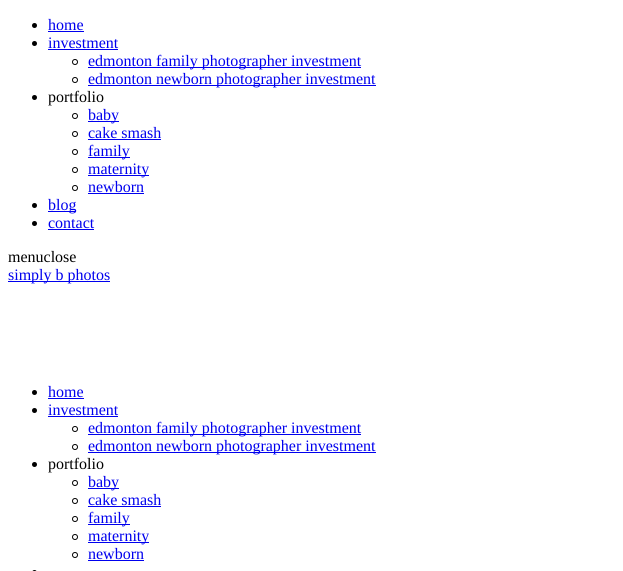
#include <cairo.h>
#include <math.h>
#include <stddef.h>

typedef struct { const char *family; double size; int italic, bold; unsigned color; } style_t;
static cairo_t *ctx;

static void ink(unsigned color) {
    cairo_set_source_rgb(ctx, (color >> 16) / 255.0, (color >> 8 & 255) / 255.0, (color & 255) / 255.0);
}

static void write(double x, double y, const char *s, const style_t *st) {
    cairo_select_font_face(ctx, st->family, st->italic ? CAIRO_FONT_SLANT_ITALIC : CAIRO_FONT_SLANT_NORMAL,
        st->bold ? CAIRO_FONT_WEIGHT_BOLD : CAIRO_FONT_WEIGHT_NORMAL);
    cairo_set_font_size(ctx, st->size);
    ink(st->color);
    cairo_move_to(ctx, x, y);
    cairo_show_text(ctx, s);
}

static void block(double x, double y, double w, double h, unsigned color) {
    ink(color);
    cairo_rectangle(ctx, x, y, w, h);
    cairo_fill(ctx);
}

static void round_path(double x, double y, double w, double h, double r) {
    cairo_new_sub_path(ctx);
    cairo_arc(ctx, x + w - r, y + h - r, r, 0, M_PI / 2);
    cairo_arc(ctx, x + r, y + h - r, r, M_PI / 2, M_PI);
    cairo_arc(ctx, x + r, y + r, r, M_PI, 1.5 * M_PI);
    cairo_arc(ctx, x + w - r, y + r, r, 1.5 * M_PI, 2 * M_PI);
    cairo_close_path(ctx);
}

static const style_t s1 = {"Liberation Serif", 16, 0, 0, 0x0000ee};
static const style_t s2 = {"Liberation Serif", 16, 0, 0, 0x000000};

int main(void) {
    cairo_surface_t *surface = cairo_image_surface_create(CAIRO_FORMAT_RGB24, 623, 571);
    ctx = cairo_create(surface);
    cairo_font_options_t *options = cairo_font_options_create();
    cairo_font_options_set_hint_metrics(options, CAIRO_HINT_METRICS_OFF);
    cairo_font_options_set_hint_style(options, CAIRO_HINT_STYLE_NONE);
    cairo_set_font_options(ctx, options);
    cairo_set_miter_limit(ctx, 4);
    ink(0xffffff);
    cairo_paint(ctx);
    ink(0x000000);
    cairo_arc(ctx, 34.5, 25.5, 2.5, 0, 2 * M_PI);
    cairo_fill(ctx);
    write(48, 30, "home", &s1);
    block(48, 31, 36, 1, 0x0000ee);
    ink(0x000000);
    cairo_new_path(ctx);
    cairo_arc(ctx, 34.5, 43.5, 2.5, 0, 2 * M_PI);
    cairo_fill(ctx);
    write(48, 48, "investment", &s1);
    block(48, 49, 70, 1, 0x0000ee);
    cairo_new_path(ctx);
    cairo_arc(ctx, 75, 62, 2.5, 0, 2 * M_PI);
    ink(0x000000);
    cairo_set_line_width(ctx, 1);
    cairo_stroke(ctx);
    block(88, 67, 273, 1, 0x0000ee);
    write(88, 66, "edmonton family photographer investment", &s1);
    cairo_new_path(ctx);
    cairo_arc(ctx, 75, 80, 2.5, 0, 2 * M_PI);
    ink(0x000000);
    cairo_stroke(ctx);
    block(88, 85, 288, 1, 0x0000ee);
    write(88, 84, "edmonton newborn photographer investment", &s1);
    ink(0x000000);
    cairo_new_path(ctx);
    cairo_arc(ctx, 34.5, 97.5, 2.5, 0, 2 * M_PI);
    cairo_fill(ctx);
    write(48, 102, "portfolio", &s2);
    cairo_new_path(ctx);
    cairo_arc(ctx, 75, 116, 2.5, 0, 2 * M_PI);
    cairo_stroke(ctx);
    block(88, 121, 31, 1, 0x0000ee);
    write(88, 120, "baby", &s1);
    cairo_new_path(ctx);
    cairo_arc(ctx, 75, 134, 2.5, 0, 2 * M_PI);
    ink(0x000000);
    cairo_stroke(ctx);
    write(88, 138, "cake smash", &s1);
    block(88, 139, 73, 1, 0x0000ee);
    cairo_new_path(ctx);
    cairo_arc(ctx, 75, 152, 2.5, 0, 2 * M_PI);
    ink(0x000000);
    cairo_stroke(ctx);
    block(88, 157, 42, 1, 0x0000ee);
    write(88, 156, "family", &s1);
    cairo_new_path(ctx);
    cairo_arc(ctx, 75, 170, 2.5, 0, 2 * M_PI);
    ink(0x000000);
    cairo_stroke(ctx);
    block(88, 175, 61, 1, 0x0000ee);
    write(88, 174, "maternity", &s1);
    cairo_new_path(ctx);
    cairo_arc(ctx, 75, 188, 2.5, 0, 2 * M_PI);
    ink(0x000000);
    cairo_stroke(ctx);
    write(88, 192, "newborn", &s1);
    block(88, 193, 56, 1, 0x0000ee);
    ink(0x000000);
    cairo_new_path(ctx);
    cairo_arc(ctx, 34.5, 205.5, 2.5, 0, 2 * M_PI);
    cairo_fill(ctx);
    block(48, 211, 28, 1, 0x0000ee);
    write(48, 210, "blog", &s1);
    ink(0x000000);
    cairo_new_path(ctx);
    cairo_arc(ctx, 34.5, 223.5, 2.5, 0, 2 * M_PI);
    cairo_fill(ctx);
    write(48, 228, "contact", &s1);
    block(48, 229, 46, 1, 0x0000ee);
    write(8, 262, "menuclose", &s2);
    block(8, 281, 102, 1, 0x0000ee);
    write(8, 280, "simply b photos", &s1);
    ink(0x000000);
    cairo_new_path(ctx);
    cairo_arc(ctx, 34.5, 392.5, 2.5, 0, 2 * M_PI);
    cairo_fill(ctx);
    write(48, 397, "home", &s1);
    block(48, 398, 36, 1, 0x0000ee);
    ink(0x000000);
    cairo_new_path(ctx);
    cairo_arc(ctx, 34.5, 410.5, 2.5, 0, 2 * M_PI);
    cairo_fill(ctx);
    write(48, 415, "investment", &s1);
    block(48, 416, 70, 1, 0x0000ee);
    cairo_new_path(ctx);
    cairo_arc(ctx, 75, 429, 2.5, 0, 2 * M_PI);
    ink(0x000000);
    cairo_stroke(ctx);
    block(88, 434, 273, 1, 0x0000ee);
    write(88, 433, "edmonton family photographer investment", &s1);
    cairo_new_path(ctx);
    cairo_arc(ctx, 75, 447, 2.5, 0, 2 * M_PI);
    ink(0x000000);
    cairo_stroke(ctx);
    block(88, 452, 288, 1, 0x0000ee);
    write(88, 451, "edmonton newborn photographer investment", &s1);
    ink(0x000000);
    cairo_new_path(ctx);
    cairo_arc(ctx, 34.5, 464.5, 2.5, 0, 2 * M_PI);
    cairo_fill(ctx);
    write(48, 469, "portfolio", &s2);
    cairo_new_path(ctx);
    cairo_arc(ctx, 75, 483, 2.5, 0, 2 * M_PI);
    cairo_stroke(ctx);
    block(88, 488, 31, 1, 0x0000ee);
    write(88, 487, "baby", &s1);
    cairo_new_path(ctx);
    cairo_arc(ctx, 75, 501, 2.5, 0, 2 * M_PI);
    ink(0x000000);
    cairo_stroke(ctx);
    write(88, 505, "cake smash", &s1);
    block(88, 506, 73, 1, 0x0000ee);
    cairo_new_path(ctx);
    cairo_arc(ctx, 75, 519, 2.5, 0, 2 * M_PI);
    ink(0x000000);
    cairo_stroke(ctx);
    block(88, 524, 42, 1, 0x0000ee);
    write(88, 523, "family", &s1);
    cairo_new_path(ctx);
    cairo_arc(ctx, 75, 537, 2.5, 0, 2 * M_PI);
    ink(0x000000);
    cairo_stroke(ctx);
    block(88, 542, 61, 1, 0x0000ee);
    write(88, 541, "maternity", &s1);
    cairo_new_path(ctx);
    cairo_arc(ctx, 75, 555, 2.5, 0, 2 * M_PI);
    ink(0x000000);
    cairo_stroke(ctx);
    write(88, 559, "newborn", &s1);
    block(88, 560, 56, 1, 0x0000ee);
    ink(0x000000);
    round_path(32, 570, 5, 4, 2.5);
    cairo_fill(ctx);
    cairo_surface_write_to_png(surface, "screenshot.png");
    cairo_font_options_destroy(options);
    cairo_destroy(ctx);
    cairo_surface_destroy(surface);
    return 0;
}
